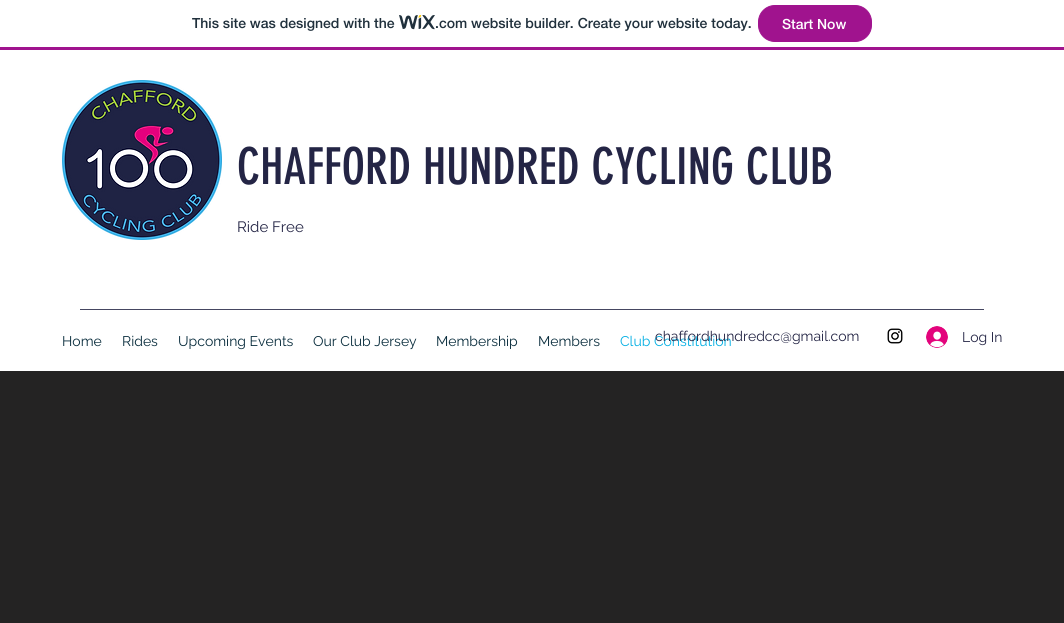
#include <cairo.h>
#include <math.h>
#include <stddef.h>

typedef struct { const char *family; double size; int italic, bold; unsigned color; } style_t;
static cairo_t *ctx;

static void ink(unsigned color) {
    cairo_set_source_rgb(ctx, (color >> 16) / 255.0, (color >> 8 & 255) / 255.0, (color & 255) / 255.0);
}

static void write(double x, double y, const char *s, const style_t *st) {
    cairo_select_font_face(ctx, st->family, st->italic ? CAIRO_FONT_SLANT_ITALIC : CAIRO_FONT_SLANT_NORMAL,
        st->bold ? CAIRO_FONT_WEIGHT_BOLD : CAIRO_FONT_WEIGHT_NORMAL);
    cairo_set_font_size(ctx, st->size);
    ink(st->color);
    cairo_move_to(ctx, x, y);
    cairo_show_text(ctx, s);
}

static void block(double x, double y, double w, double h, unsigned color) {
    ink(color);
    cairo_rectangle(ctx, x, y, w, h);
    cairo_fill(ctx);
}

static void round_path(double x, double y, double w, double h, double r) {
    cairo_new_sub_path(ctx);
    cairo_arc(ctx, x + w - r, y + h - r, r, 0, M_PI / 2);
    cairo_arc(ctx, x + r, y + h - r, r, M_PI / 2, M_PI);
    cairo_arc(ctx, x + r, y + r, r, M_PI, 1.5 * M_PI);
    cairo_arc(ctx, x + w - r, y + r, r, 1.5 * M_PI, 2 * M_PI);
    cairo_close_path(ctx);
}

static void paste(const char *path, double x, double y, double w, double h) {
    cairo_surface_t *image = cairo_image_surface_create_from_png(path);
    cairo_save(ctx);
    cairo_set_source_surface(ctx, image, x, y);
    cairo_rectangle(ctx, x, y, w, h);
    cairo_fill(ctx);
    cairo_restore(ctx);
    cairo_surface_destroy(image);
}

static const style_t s1 = {"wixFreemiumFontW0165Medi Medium", 14, 0, 0, 0x20303c};
static const style_t s2 = {"wixFreemiumFontW0165Medi Medium", 14, 0, 0, 0xffffff};
static const style_t s3 = {"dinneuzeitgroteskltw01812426", 50, 0, 0, 0x242545};
static const style_t s4 = {"Raleway", 15, 0, 0, 0x242545};
static const style_t s5 = {"Raleway", 14, 0, 0, 0x082c3c};
static const style_t s6 = {"Raleway", 14, 0, 0, 0x04afe3};
static const style_t s7 = {"Raleway", 14, 0, 0, 0x242545};

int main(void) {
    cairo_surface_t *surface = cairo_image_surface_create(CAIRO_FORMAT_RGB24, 1064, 623);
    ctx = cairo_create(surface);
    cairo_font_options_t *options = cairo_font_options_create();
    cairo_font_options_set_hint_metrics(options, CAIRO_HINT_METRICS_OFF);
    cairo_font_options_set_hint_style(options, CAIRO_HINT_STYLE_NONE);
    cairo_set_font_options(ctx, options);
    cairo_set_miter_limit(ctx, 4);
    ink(0xffffff);
    cairo_paint(ctx);
    block(0, 47, 1064, 3, 0xa0138e);
    write(192, 28, "This site was designed with the", &s1);
    paste("pic1.png", 399, 15, 36, 15);
    write(435, 28, ".com website builder. Create your website today.", &s1);
    ink(0xa0138e);
    round_path(758.5, 5.5, 113, 36, 16.5);
    cairo_fill_preserve(ctx);
    cairo_set_line_width(ctx, 1);
    cairo_stroke(ctx);
    write(782, 29, "Start Now", &s2);
    paste("pic2.png", 62, 80, 160, 160);
    write(237, 184, "CHAFFORD HUNDRED CYCLING CLUB", &s3);
    write(237, 232, "Ride Free", &s4);
    block(80, 309, 904, 1, 0x454661);
    write(62, 346, "Home", &s5);
    write(122, 346, "Rides", &s5);
    write(178, 346, "Upcoming Events", &s5);
    write(313, 346, "Our Club Jersey", &s5);
    write(436, 346, "Membership", &s5);
    write(538, 346, "Members", &s5);
    write(620, 346, "Club Constitution", &s6);
    write(655, 341, "chaffordhundredcc@gmail.com", &s7);
    paste("pic3.png", 887, 328, 16, 16);
    paste("pic4.png", 926, 326, 22, 22);
    write(962, 342, "Log In", &s7);
    block(0, 371, 1064, 252, 0x242323);
    cairo_surface_write_to_png(surface, "screenshot.png");
    cairo_font_options_destroy(options);
    cairo_destroy(ctx);
    cairo_surface_destroy(surface);
    return 0;
}
